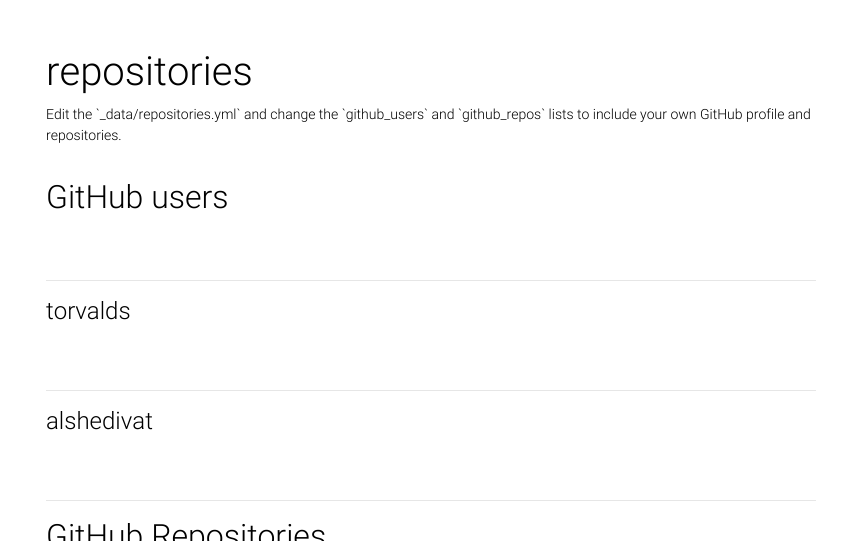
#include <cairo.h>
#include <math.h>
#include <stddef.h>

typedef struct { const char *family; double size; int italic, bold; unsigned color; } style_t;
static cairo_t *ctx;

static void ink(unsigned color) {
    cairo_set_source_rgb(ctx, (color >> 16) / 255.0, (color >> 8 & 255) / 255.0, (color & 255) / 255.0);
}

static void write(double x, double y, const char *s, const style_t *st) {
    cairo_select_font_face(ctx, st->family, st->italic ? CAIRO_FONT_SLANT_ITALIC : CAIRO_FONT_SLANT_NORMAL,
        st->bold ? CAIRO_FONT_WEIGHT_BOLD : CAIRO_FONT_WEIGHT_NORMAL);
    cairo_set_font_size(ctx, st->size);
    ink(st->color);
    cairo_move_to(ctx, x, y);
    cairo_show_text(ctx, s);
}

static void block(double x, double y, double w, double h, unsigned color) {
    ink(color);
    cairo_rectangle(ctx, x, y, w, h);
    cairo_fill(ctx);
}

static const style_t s1 = {"Roboto Light", 40, 0, 0, 0x000000};
static const style_t s2 = {"Roboto Light", 14, 0, 0, 0x000000};
static const style_t s3 = {"Roboto Light", 32, 0, 0, 0x000000};
static const style_t s4 = {"Roboto Light", 24, 0, 0, 0x000000};

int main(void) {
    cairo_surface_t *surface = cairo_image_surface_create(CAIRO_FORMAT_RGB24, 861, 541);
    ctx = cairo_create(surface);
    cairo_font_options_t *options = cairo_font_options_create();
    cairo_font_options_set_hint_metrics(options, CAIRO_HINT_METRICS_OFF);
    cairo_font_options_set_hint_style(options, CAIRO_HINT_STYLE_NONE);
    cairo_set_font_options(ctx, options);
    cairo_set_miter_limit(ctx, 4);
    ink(0xffffff);
    cairo_paint(ctx);
    write(46, 85, "repositories", &s1);
    write(46, 119, "Edit the `_data/repositories.yml` and change the `github_users` and `github_repos` lists to include your own GitHub profile and", &s2);
    write(46, 140, "repositories.", &s2);
    write(46, 208, "GitHub users", &s3);
    block(46, 280, 770, 1, 0xe6e6e6);
    write(46, 319, "torvalds", &s4);
    block(46, 390, 770, 1, 0xe6e6e6);
    write(46, 429, "alshedivat", &s4);
    block(46, 500, 770, 1, 0xe6e6e6);
    write(46, 547, "GitHub Repositories", &s3);
    cairo_surface_write_to_png(surface, "screenshot.png");
    cairo_font_options_destroy(options);
    cairo_destroy(ctx);
    cairo_surface_destroy(surface);
    return 0;
}
